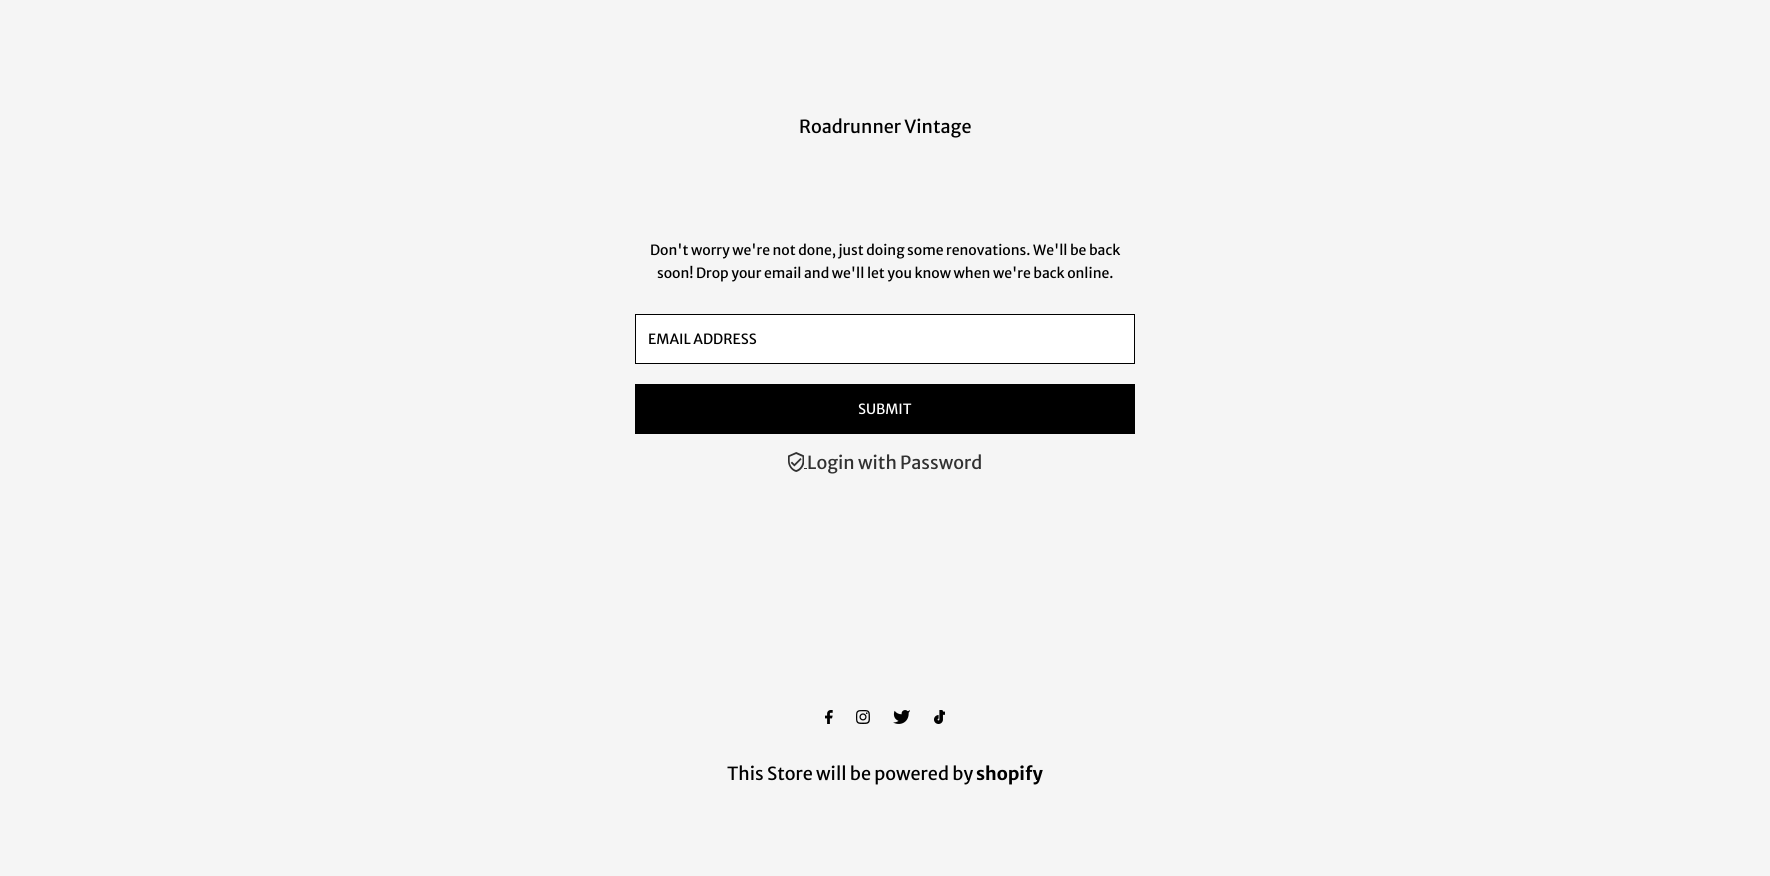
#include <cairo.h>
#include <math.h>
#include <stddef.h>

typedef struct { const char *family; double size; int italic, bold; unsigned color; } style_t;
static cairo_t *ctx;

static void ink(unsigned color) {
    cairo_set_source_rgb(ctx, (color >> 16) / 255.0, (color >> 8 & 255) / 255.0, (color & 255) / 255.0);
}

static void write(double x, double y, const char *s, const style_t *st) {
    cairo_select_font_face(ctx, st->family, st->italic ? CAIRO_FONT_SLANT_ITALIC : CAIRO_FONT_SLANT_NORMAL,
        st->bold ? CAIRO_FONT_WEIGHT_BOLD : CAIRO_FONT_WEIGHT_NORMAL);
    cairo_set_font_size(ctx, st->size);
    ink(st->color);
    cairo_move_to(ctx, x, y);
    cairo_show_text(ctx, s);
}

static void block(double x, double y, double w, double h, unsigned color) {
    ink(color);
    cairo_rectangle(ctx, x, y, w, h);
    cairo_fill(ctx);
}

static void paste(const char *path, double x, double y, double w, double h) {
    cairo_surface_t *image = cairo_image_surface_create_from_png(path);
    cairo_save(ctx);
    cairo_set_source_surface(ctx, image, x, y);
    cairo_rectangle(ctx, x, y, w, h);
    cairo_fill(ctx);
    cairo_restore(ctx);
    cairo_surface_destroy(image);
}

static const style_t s1 = {"Merriweather Sans", 18, 0, 0, 0x000000};
static const style_t s2 = {"Merriweather Sans", 14, 0, 0, 0x000000};
static const style_t s3 = {"Merriweather Sans", 14, 0, 0, 0xffffff};
static const style_t s4 = {"Merriweather Sans", 18, 0, 0, 0x313131};
static const style_t s5 = {"Merriweather Sans", 18, 0, 1, 0x000000};

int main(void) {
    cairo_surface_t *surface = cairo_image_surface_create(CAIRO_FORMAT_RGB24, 1770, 876);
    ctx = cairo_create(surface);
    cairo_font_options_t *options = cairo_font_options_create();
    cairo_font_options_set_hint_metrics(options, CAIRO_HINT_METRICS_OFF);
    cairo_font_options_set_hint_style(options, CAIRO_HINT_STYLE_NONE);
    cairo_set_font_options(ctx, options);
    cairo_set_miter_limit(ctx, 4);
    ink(0xf5f5f5);
    cairo_paint(ctx);
    write(799, 133, "Roadrunner Vintage", &s1);
    write(650, 255, "Don't worry we're not done, just doing some renovations. We'll be back", &s2);
    write(657, 278, "soon! Drop your email and we'll let you know when we're back online.", &s2);
    ink(0xffffff);
    cairo_rectangle(ctx, 635.5, 314.5, 499, 49);
    cairo_fill_preserve(ctx);
    ink(0x000000);
    cairo_set_line_width(ctx, 1);
    cairo_stroke(ctx);
    write(648, 344, "EMAIL ADDRESS", &s2);
    block(635, 384, 500, 50, 0x000000);
    write(858, 414, "SUBMIT", &s3);
    paste("pic1.png", 788, 452, 16, 20);
    block(804, 468, 3, 1, 0x313131);
    write(807, 469, "Login with Password", &s4);
    paste("pic2.png", 825, 710, 8, 14);
    paste("pic3.png", 856, 710, 14, 14);
    paste("pic4.png", 893, 710, 17, 14);
    paste("pic5.png", 934, 710, 11, 14);
    write(727, 780, "This Store will be powered by", &s1);
    write(976, 780, "shopify", &s5);
    cairo_surface_write_to_png(surface, "screenshot.png");
    cairo_font_options_destroy(options);
    cairo_destroy(ctx);
    cairo_surface_destroy(surface);
    return 0;
}
